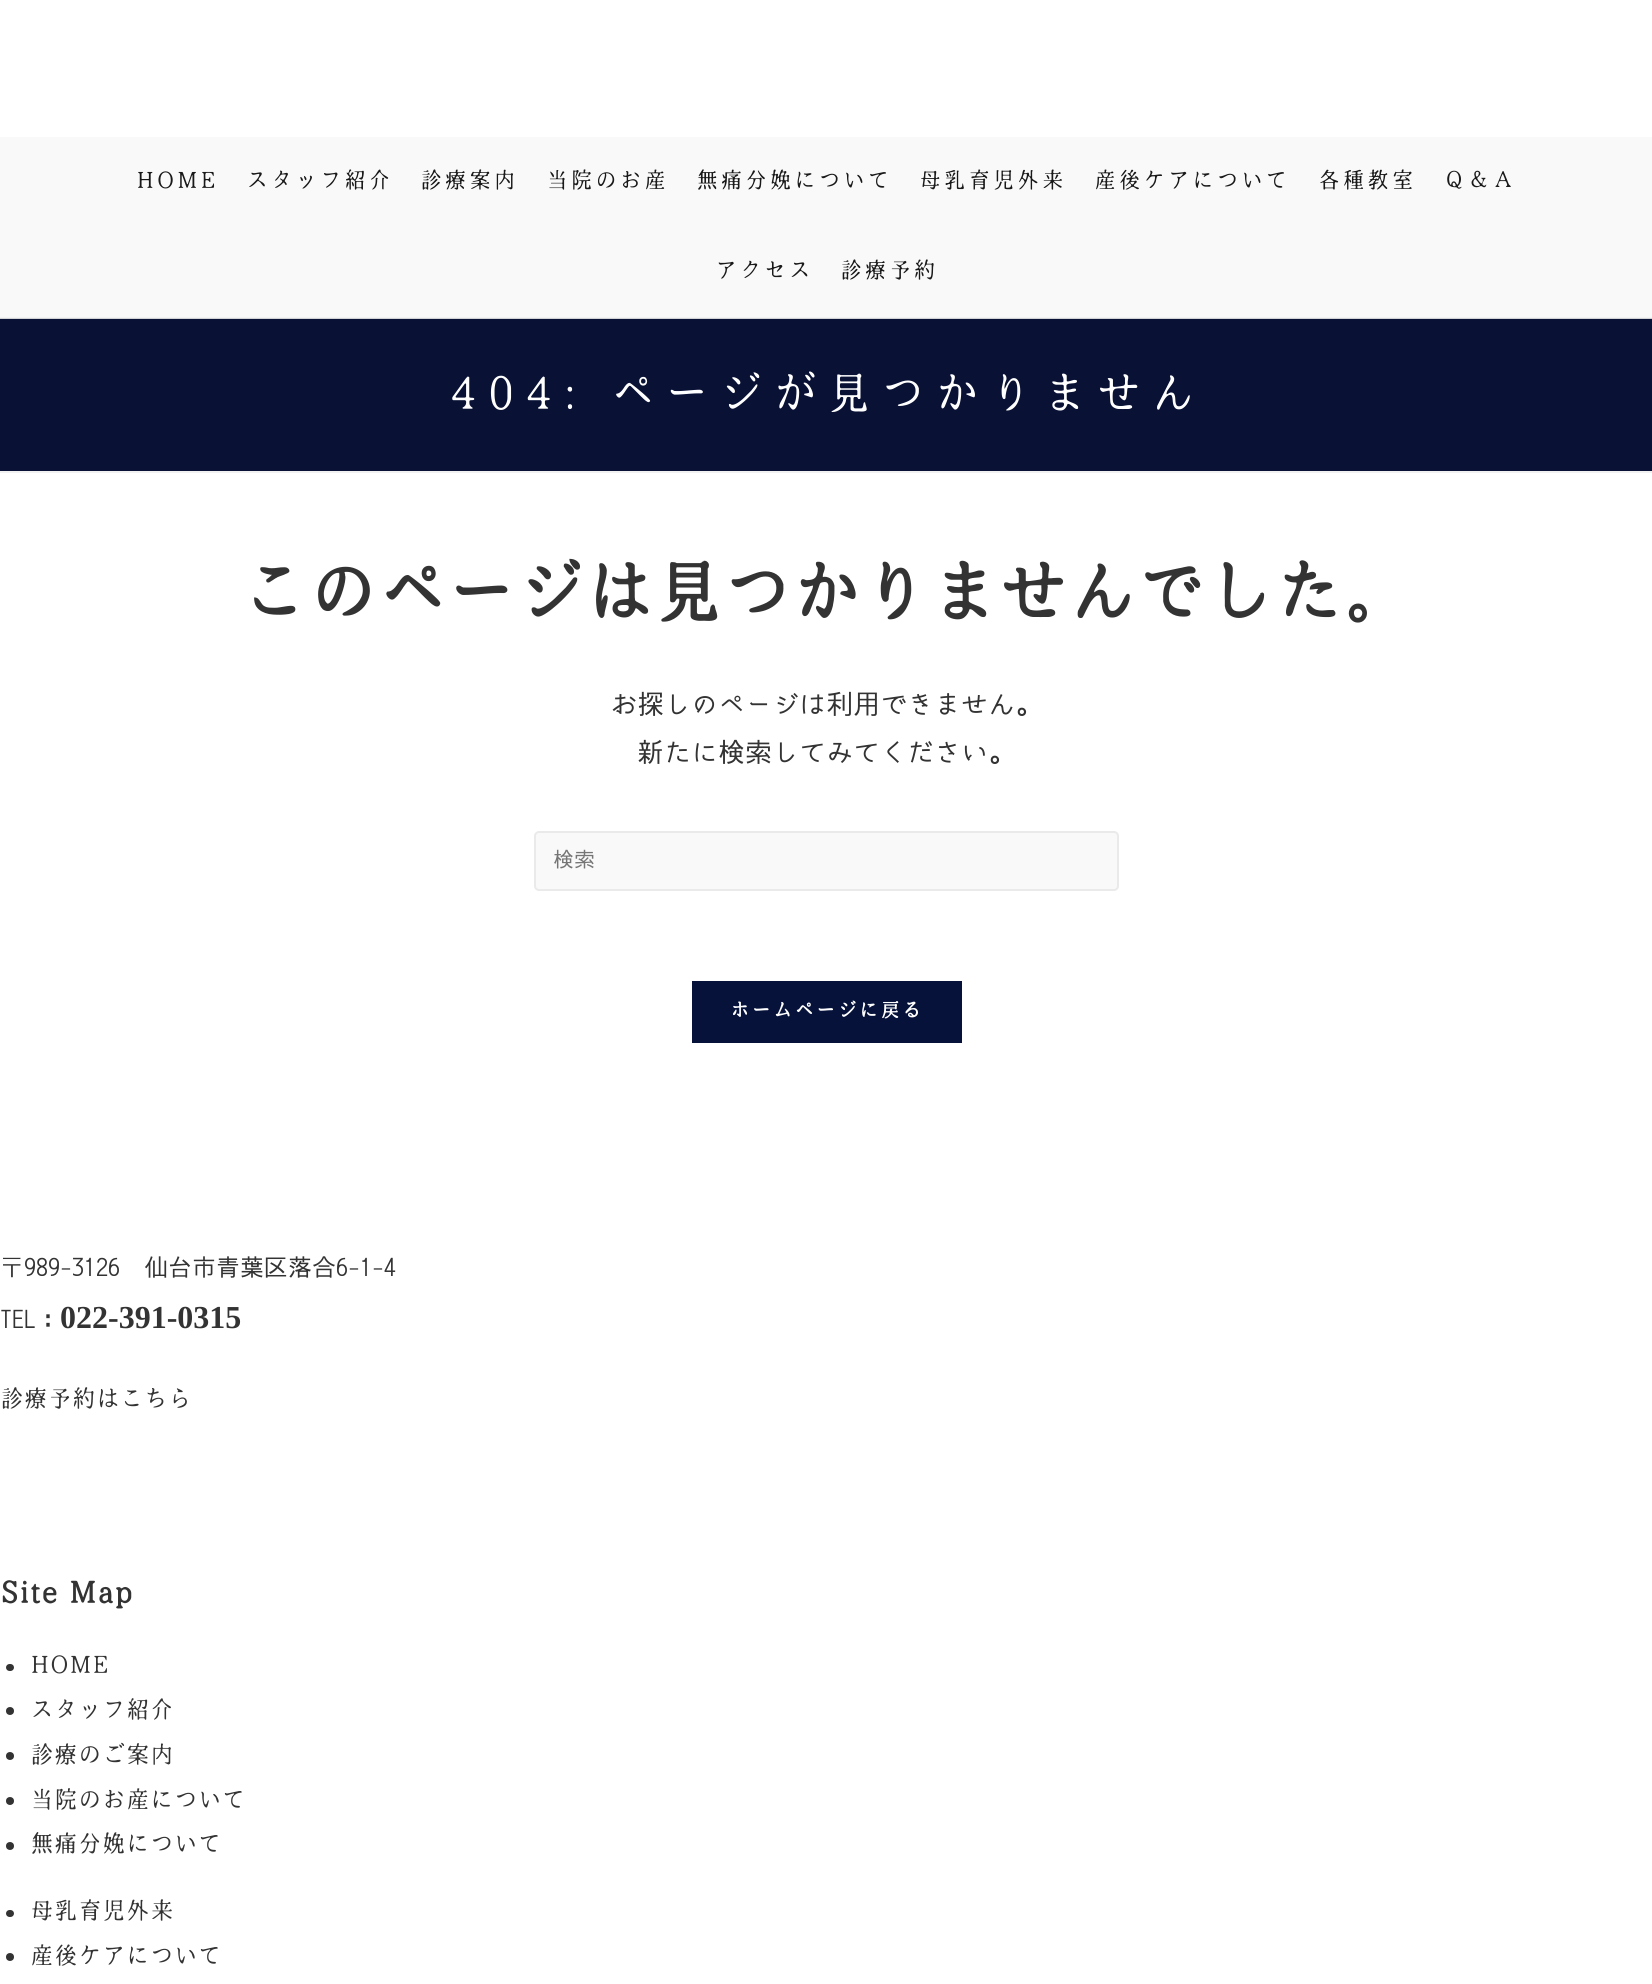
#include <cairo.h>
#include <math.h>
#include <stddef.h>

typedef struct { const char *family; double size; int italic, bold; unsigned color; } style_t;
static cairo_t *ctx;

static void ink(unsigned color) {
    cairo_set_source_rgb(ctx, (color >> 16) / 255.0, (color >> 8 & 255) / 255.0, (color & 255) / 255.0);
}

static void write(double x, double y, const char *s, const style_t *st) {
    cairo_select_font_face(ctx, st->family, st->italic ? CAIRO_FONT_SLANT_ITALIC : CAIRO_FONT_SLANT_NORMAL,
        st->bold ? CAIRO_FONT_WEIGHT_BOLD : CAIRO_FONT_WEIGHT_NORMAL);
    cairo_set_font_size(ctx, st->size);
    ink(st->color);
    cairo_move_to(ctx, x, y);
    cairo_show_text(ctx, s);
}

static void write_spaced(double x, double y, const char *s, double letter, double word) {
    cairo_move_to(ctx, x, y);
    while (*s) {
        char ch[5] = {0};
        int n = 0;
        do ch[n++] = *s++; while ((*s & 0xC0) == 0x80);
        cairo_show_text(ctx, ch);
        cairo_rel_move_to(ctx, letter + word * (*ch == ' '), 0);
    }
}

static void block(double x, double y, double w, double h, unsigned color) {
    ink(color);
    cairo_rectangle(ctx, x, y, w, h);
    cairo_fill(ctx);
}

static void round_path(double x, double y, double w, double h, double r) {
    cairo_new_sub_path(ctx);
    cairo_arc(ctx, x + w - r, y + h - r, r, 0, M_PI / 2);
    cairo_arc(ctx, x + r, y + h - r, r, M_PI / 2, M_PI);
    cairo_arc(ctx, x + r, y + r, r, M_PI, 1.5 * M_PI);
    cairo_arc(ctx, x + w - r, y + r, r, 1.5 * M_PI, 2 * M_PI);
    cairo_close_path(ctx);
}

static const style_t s1 = {"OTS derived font", 69, 0, 1, 0x333333};
static const style_t s2 = {"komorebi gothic", 27, 0, 0, 0x333333};
static const style_t s3 = {"komorebi gothic", 21, 0, 0, 0x757575};
static const style_t s4 = {"komorebi gothic", 24, 0, 0, 0x333333};
static const style_t s5 = {"Liberation Serif", 32, 0, 1, 0x333333};
static const style_t s6 = {"OTS derived font", 24, 0, 0, 0x333333};
static const style_t s7 = {"OTS derived font", 30, 0, 1, 0x333333};

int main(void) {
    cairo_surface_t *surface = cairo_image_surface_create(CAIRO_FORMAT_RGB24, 1652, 1984);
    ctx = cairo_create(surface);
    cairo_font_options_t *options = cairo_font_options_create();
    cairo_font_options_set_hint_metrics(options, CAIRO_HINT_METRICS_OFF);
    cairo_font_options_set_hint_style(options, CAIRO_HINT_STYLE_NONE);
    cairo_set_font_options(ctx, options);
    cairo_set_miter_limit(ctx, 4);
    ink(0xffffff);
    cairo_paint(ctx);
    block(0, 317, 1652, 1, 0xf3f3f3);
    block(0, 137, 1652, 180, 0xf9f9f9);
    cairo_select_font_face(ctx, "OTS derived font", CAIRO_FONT_SLANT_NORMAL, CAIRO_FONT_WEIGHT_NORMAL);
    cairo_set_font_size(ctx, 22.5);
    ink(0x191919);
    write_spaced(136, 188, "HOME", 2, 0);
    write_spaced(246, 188, "スタッフ紹介", 2, 0);
    write_spaced(420, 188, "診療案内", 2, 0);
    write_spaced(546, 188, "当院のお産", 2, 0);
    write_spaced(696, 188, "無痛分娩について", 2, 0);
    write_spaced(919, 188, "母乳育児外来", 2, 0);
    write_spaced(1094, 188, "産後ケアについて", 2, 0);
    write_spaced(1318, 188, "各種教室", 2, 0);
    write_spaced(1443, 188, "Ｑ＆Ａ", 2, 0);
    write_spaced(715, 278, "アクセス", 2, 0);
    write_spaced(840, 278, "診療予約", 2, 0);
    block(0, 319, 1652, 152, 0x091135);
    block(0, 318, 1652, 1, 0xd1d2d7);
    block(0, 471, 1652, 2, 0xf1f1f1);
    cairo_set_font_size(ctx, 45);
    ink(0xffffff);
    write_spaced(449, 409, "404: ページが見つかりません", 9, 0);
    write(240, 617, "このページは見つかりませんでした。", &s1);
    write(610, 714, "お探しのページは利用できません。", &s2);
    write(637, 762, "新たに検索してみてください。", &s2);
    ink(0xf9f9f9);
    round_path(535, 832, 583, 58, 4);
    cairo_fill_preserve(ctx);
    ink(0xeaeaea);
    cairo_stroke(ctx);
    write(553, 867, "検索", &s3);
    block(692, 981, 270, 62, 0x06123a);
    cairo_select_font_face(ctx, "OTS derived font", CAIRO_FONT_SLANT_NORMAL, CAIRO_FONT_WEIGHT_BOLD);
    cairo_set_font_size(ctx, 19.5);
    ink(0xffffff);
    write_spaced(730, 1017, "ホームページに戻る", 2, 0);
    write(0, 1276, "〒989-3126　仙台市青葉区落合6-1-4", &s4);
    write(0, 1328, "TEL：", &s4);
    write(60, 1328, "022-391-0315", &s5);
    write(0, 1407, "診療予約はこちら", &s6);
    write(0, 1603, "Site Map", &s7);
    round_path(6, 1664, 8, 7, 3.5);
    cairo_fill(ctx);
    write(30, 1673, "HOME", &s6);
    cairo_new_path(ctx);
    cairo_arc(ctx, 10, 1711, 4, 0, 2 * M_PI);
    cairo_fill(ctx);
    write(30, 1718, "スタッフ紹介", &s6);
    cairo_new_path(ctx);
    cairo_arc(ctx, 10, 1756, 4, 0, 2 * M_PI);
    cairo_fill(ctx);
    write(30, 1763, "診療のご案内", &s6);
    cairo_new_path(ctx);
    cairo_arc(ctx, 10, 1801, 4, 0, 2 * M_PI);
    cairo_fill(ctx);
    write(30, 1808, "当院のお産について", &s6);
    cairo_new_path(ctx);
    cairo_arc(ctx, 10, 1846, 4, 0, 2 * M_PI);
    cairo_fill(ctx);
    write(30, 1852, "無痛分娩について", &s6);
    round_path(6, 1910, 8, 7, 3.5);
    cairo_fill(ctx);
    write(30, 1919, "母乳育児外来", &s6);
    cairo_new_path(ctx);
    cairo_arc(ctx, 10, 1957, 4, 0, 2 * M_PI);
    cairo_fill(ctx);
    write(30, 1964, "産後ケアについて", &s6);
    cairo_surface_write_to_png(surface, "screenshot.png");
    cairo_font_options_destroy(options);
    cairo_destroy(ctx);
    cairo_surface_destroy(surface);
    return 0;
}
